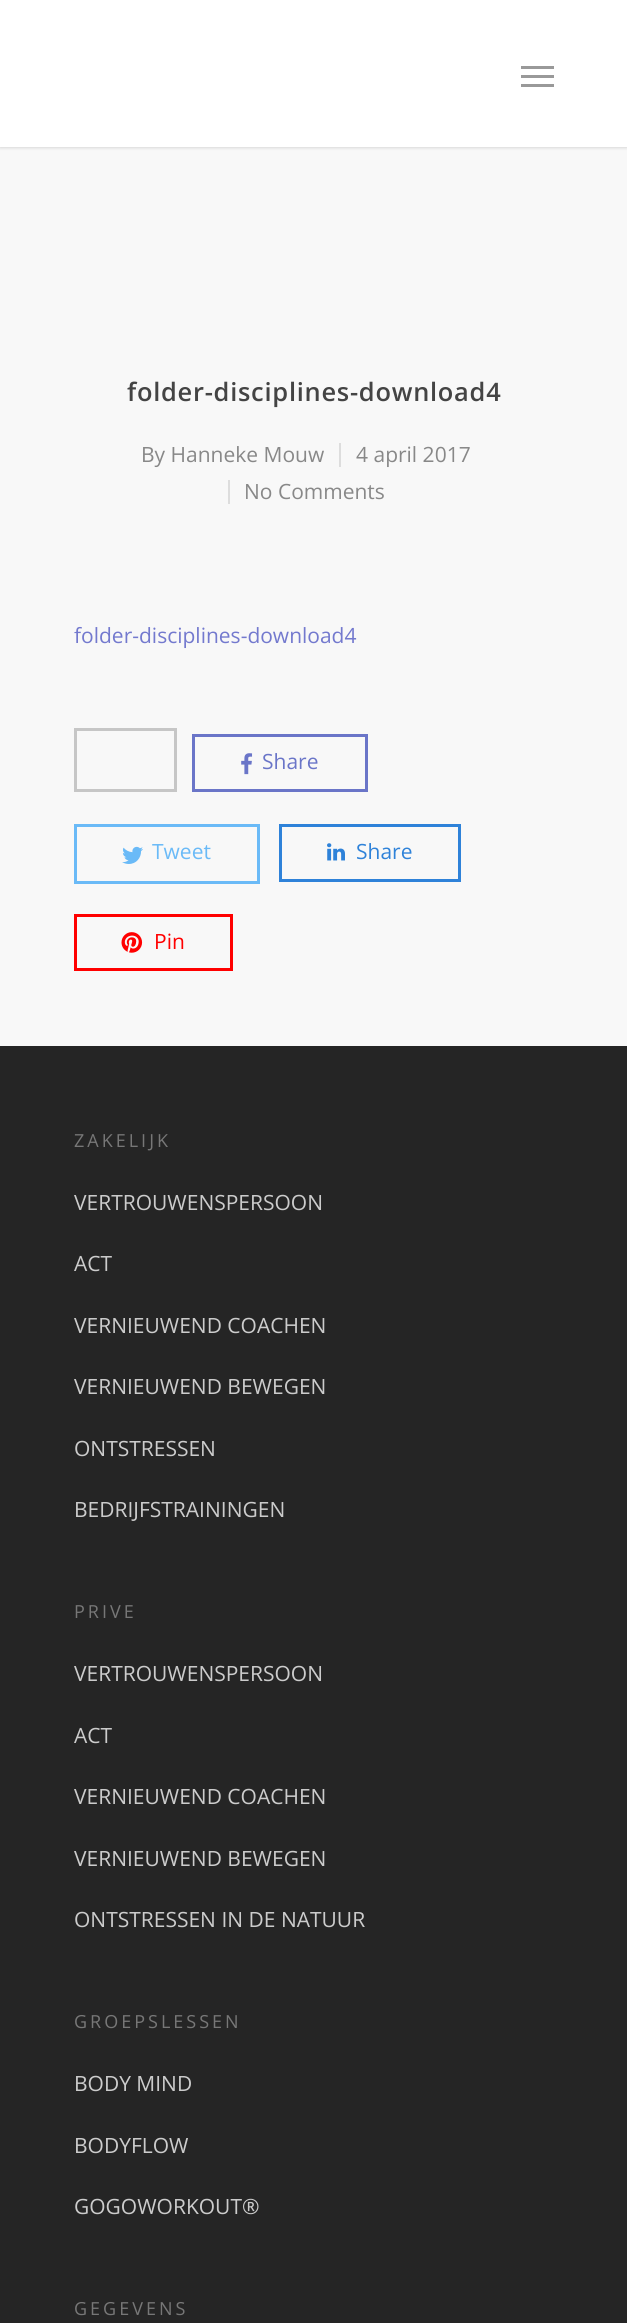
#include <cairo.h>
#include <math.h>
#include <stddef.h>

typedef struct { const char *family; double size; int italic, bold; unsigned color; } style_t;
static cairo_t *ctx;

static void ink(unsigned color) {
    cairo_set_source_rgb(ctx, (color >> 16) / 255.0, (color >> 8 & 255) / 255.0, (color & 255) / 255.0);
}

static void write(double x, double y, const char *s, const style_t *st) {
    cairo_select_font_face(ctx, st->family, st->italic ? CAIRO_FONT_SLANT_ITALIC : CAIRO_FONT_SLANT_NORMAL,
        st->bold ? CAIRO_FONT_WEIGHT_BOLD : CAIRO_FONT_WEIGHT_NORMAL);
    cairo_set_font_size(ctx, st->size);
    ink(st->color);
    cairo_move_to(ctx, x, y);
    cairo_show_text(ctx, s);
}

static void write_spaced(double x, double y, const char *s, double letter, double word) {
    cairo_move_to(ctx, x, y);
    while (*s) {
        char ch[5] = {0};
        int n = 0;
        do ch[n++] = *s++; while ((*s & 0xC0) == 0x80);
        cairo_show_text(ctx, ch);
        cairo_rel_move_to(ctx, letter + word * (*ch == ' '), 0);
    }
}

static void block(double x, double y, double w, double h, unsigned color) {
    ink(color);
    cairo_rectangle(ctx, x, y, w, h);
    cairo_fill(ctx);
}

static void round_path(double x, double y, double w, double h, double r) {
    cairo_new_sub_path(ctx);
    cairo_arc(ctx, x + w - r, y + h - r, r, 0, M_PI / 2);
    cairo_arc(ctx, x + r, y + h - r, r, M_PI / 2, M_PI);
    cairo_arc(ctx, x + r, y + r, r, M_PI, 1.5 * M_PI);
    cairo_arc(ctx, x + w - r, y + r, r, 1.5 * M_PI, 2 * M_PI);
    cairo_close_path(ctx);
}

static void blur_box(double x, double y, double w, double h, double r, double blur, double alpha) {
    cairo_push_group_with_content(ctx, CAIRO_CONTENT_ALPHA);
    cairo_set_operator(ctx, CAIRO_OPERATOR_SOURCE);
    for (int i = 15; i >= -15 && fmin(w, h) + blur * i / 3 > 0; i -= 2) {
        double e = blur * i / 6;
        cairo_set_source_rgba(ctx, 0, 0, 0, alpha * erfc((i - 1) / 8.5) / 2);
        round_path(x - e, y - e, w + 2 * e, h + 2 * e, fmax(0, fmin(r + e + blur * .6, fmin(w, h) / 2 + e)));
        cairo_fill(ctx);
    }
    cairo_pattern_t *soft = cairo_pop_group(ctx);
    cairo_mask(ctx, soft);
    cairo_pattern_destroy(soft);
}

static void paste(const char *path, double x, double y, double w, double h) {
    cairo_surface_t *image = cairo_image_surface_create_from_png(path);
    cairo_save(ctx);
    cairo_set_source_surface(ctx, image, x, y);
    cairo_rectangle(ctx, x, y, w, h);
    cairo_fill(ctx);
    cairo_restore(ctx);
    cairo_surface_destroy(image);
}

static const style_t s1 = {"Open Sans", 21, 0, 0, 0x888888};
static const style_t s2 = {"Open Sans", 21, 0, 0, 0x7379ce};
static const style_t s3 = {"Open Sans", 21, 0, 0, 0x6a75c8};
static const style_t s4 = {"Open Sans", 21, 0, 0, 0x6abaf7};
static const style_t s5 = {"Open Sans", 21, 0, 0, 0x2e82d9};
static const style_t s6 = {"Open Sans", 21, 0, 0, 0xff0000};
static const style_t s7 = {"Open Sans", 21, 0, 0, 0xcccccc};

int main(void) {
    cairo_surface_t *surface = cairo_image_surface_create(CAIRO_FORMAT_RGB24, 627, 2323);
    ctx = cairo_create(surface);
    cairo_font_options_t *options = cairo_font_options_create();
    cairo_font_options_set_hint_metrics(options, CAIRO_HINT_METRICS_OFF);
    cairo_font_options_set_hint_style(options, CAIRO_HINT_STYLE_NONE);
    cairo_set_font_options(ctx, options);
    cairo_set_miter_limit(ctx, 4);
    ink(0x252525);
    cairo_paint(ctx);
    block(0, 147, 627, 899, 0xf8f8f8);
    ink(0x000000);
    blur_box(0, 0, 627, 147, 0, 2, 0.22);
    block(0, 0, 627, 147, 0xffffff);
    block(521, 66, 33, 3, 0x999999);
    block(521, 84, 33, 3, 0x999999);
    block(521, 75, 33, 3, 0x999999);
    cairo_select_font_face(ctx, "Open Sans SemiBold", CAIRO_FONT_SLANT_NORMAL, CAIRO_FONT_WEIGHT_NORMAL);
    cairo_set_font_size(ctx, 25.4);
    ink(0x444444);
    write_spaced(127, 401, "folder-disciplines-download4", 0.75, 0);
    write(141, 462, "By Hanneke Mouw", &s1);
    block(339, 443, 2, 24, 0xdddddd);
    write(356, 462, "4 april 2017", &s1);
    block(228, 480, 2, 24, 0xdddddd);
    write(244, 499, "No Comments", &s1);
    write(74, 643, "folder-disciplines-download4", &s2);
    cairo_rectangle(ctx, 75.5, 729.5, 100, 61);
    ink(0xc6c6c6);
    cairo_set_line_width(ctx, 3);
    cairo_stroke(ctx);
    cairo_rectangle(ctx, 193.5, 735.5, 173, 55);
    ink(0x6a75c8);
    cairo_stroke(ctx);
    paste("pic1.png", 241, 753, 12, 22);
    write(262, 769, "Share", &s3);
    cairo_rectangle(ctx, 75.5, 825.5, 183, 57);
    ink(0x6abaf7);
    cairo_stroke(ctx);
    paste("pic2.png", 122, 846, 21, 18);
    write(152, 859, "Tweet", &s4);
    cairo_rectangle(ctx, 280.5, 825.5, 179, 55);
    ink(0x2e82d9);
    cairo_stroke(ctx);
    paste("pic3.png", 327, 843, 18, 18);
    write(356, 859, "Share", &s5);
    cairo_rectangle(ctx, 75.5, 915.5, 156, 54);
    ink(0xff0000);
    cairo_stroke(ctx);
    paste("pic4.png", 121, 932, 22, 21);
    write(154, 949, "Pin", &s6);
    cairo_set_font_size(ctx, 18);
    ink(0x777777);
    write_spaced(74, 1147, "ZAKELIJK", 3, 0);
    write(74, 1210, "VERTROUWENSPERSOON", &s7);
    write(74, 1271, "ACT", &s7);
    write(74, 1333, "VERNIEUWEND COACHEN", &s7);
    write(74, 1394, "VERNIEUWEND BEWEGEN", &s7);
    write(74, 1456, "ONTSTRESSEN", &s7);
    write(74, 1517, "BEDRIJFSTRAININGEN", &s7);
    cairo_set_font_size(ctx, 18);
    ink(0x777777);
    write_spaced(74, 1618, "PRIVE", 3, 0);
    write(74, 1681, "VERTROUWENSPERSOON", &s7);
    write(74, 1743, "ACT", &s7);
    write(74, 1804, "VERNIEUWEND COACHEN", &s7);
    write(74, 1866, "VERNIEUWEND BEWEGEN", &s7);
    write(74, 1927, "ONTSTRESSEN IN DE NATUUR", &s7);
    cairo_set_font_size(ctx, 18);
    ink(0x777777);
    write_spaced(74, 2028, "GROEPSLESSEN", 3, 0);
    write(74, 2091, "BODY MIND", &s7);
    write(74, 2153, "BODYFLOW", &s7);
    write(74, 2214, "GOGOWORKOUT®", &s7);
    cairo_set_font_size(ctx, 18);
    ink(0x777777);
    write_spaced(74, 2315, "GEGEVENS", 3, 0);
    cairo_surface_write_to_png(surface, "screenshot.png");
    cairo_font_options_destroy(options);
    cairo_destroy(ctx);
    cairo_surface_destroy(surface);
    return 0;
}
